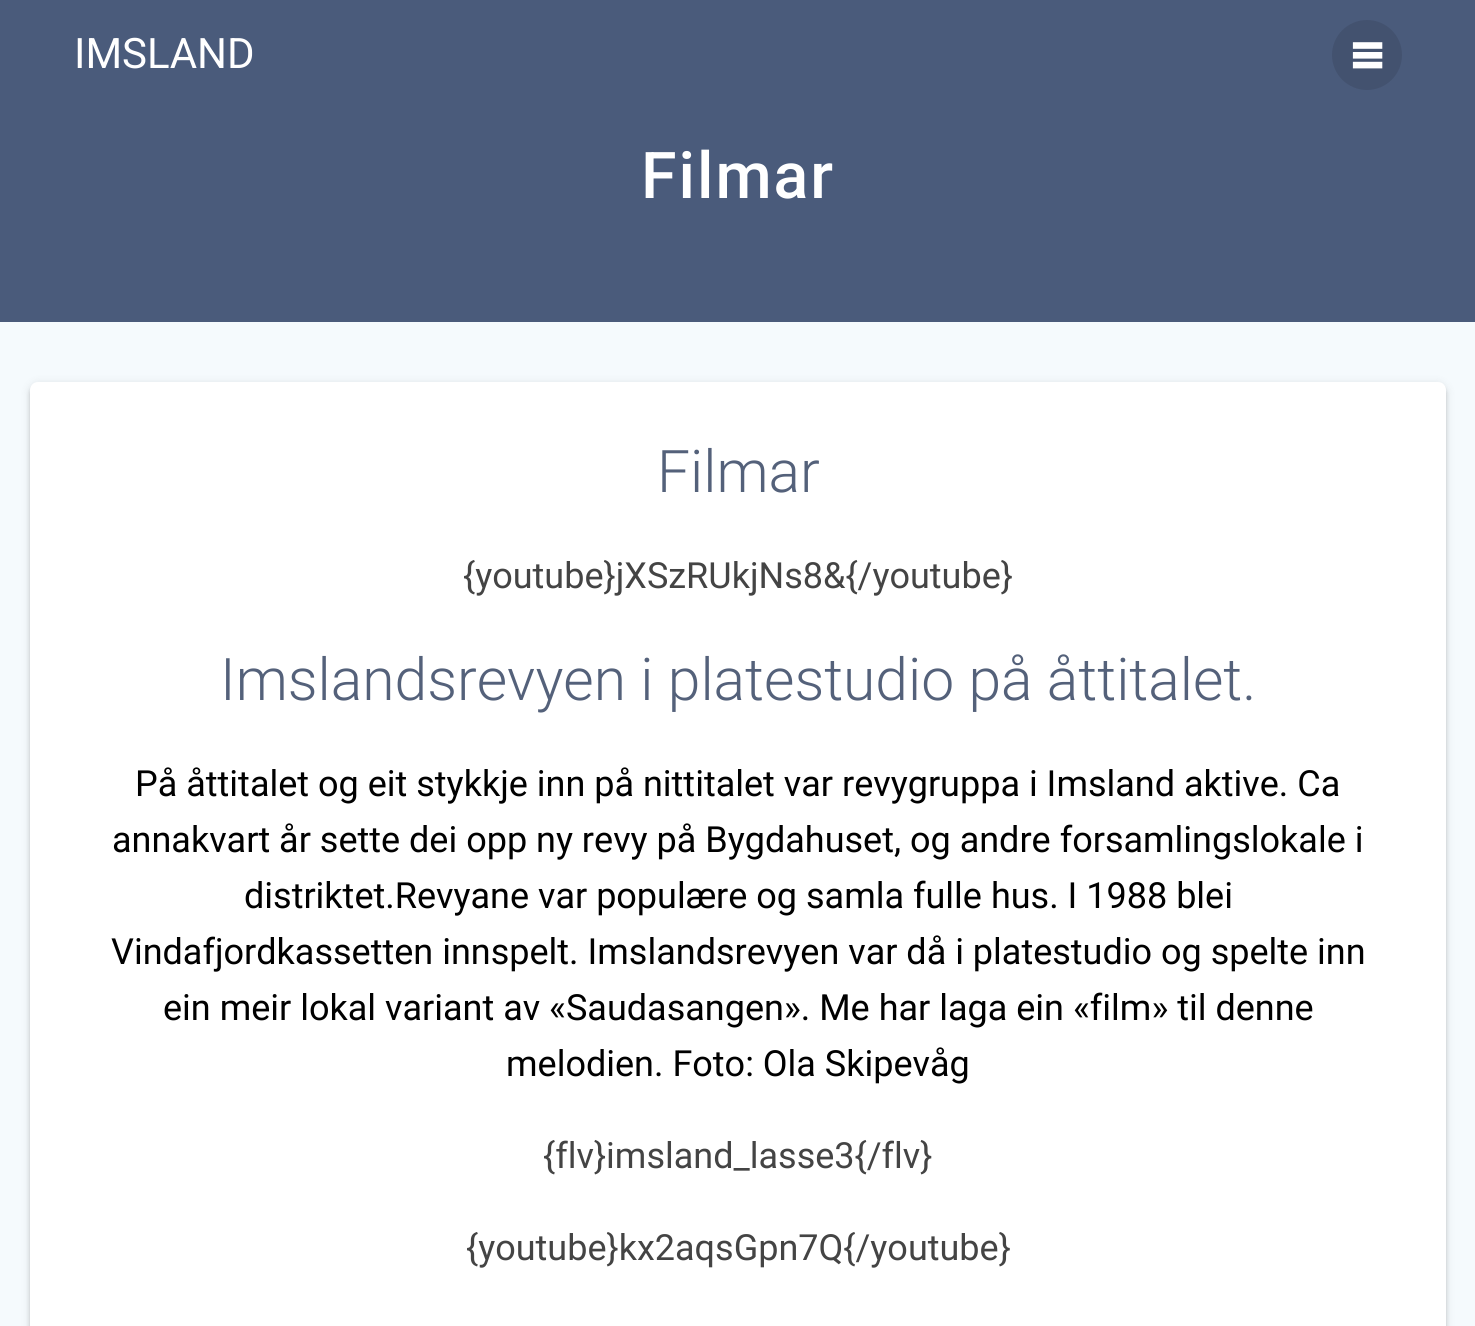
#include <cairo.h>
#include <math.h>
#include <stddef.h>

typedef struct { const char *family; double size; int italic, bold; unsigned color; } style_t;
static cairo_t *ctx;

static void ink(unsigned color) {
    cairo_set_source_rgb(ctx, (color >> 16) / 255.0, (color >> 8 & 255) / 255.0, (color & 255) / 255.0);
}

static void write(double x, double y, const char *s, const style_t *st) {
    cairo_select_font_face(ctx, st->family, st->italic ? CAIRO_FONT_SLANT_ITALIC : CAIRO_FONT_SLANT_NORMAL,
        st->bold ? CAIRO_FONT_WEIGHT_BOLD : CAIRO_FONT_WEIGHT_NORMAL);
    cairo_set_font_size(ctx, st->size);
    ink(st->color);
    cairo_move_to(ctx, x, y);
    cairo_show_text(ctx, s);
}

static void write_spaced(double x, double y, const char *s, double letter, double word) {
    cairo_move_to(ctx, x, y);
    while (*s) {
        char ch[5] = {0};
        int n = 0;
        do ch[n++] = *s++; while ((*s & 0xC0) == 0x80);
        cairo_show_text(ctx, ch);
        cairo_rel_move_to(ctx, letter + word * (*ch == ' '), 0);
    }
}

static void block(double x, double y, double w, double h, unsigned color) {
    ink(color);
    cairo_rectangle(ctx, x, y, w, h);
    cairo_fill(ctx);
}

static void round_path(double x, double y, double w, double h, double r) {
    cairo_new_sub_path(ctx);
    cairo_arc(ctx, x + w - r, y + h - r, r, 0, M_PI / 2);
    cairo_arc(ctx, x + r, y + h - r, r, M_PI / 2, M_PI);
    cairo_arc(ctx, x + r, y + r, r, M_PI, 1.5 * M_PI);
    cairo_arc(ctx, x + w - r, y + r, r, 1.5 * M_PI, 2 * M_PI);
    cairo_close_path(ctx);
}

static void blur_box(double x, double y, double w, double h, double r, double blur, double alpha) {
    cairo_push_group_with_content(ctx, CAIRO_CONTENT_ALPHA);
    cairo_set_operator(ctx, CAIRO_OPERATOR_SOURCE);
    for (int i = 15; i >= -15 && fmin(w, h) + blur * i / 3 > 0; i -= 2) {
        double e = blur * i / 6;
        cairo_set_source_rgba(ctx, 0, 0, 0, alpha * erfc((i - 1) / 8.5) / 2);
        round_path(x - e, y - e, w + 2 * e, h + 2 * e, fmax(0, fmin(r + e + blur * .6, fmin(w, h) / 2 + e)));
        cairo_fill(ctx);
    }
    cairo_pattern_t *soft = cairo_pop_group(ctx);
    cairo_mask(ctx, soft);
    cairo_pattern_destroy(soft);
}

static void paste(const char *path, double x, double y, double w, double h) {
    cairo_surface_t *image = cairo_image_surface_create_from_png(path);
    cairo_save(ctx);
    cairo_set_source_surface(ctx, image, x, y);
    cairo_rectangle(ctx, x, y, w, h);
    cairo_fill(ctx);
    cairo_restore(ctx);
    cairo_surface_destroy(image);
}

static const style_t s1 = {"Roboto", 42, 0, 0, 0xffffff};
static const style_t s2 = {"Roboto Light", 58.75, 0, 0, 0x54617a};
static const style_t s3 = {"Roboto", 36, 0, 0, 0x444444};
static const style_t s4 = {"Roboto", 36, 0, 0, 0x000000};

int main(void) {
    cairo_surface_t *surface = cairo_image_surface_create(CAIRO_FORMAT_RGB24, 1475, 1326);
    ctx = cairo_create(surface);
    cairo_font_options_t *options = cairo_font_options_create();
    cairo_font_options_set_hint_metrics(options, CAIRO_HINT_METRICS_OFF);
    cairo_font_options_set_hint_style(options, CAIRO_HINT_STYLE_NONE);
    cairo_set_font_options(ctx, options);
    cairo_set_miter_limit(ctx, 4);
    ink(0x4a5b7b);
    cairo_paint(ctx);
    write(74, 68, "IMSLAND", &s1);
    ink(0x43526f);
    cairo_new_path(ctx);
    cairo_arc(ctx, 1367, 55, 35, 0, 2 * M_PI);
    cairo_fill(ctx);
    paste("pic1.png", 1352, 42, 31, 27);
    cairo_select_font_face(ctx, "Roboto Medium", CAIRO_FONT_SLANT_NORMAL, CAIRO_FONT_WEIGHT_NORMAL);
    cairo_set_font_size(ctx, 64.5);
    ink(0xffffff);
    write_spaced(641, 198, "Filmar", 2, 0);
    block(0, 322, 1475, 1004, 0xf5fafd);
    ink(0x000000);
    blur_box(30, 384, 1416, 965, 8, 5, 0.12);
    blur_box(30, 386, 1416, 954, 8, 2, 0.14);
    ink(0xffffff);
    round_path(30, 382, 1416, 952, 8);
    cairo_fill(ctx);
    write(657, 492, "Filmar", &s2);
    write(463, 588, "{youtube}jXSzRUkjNs8&{/youtube}", &s3);
    write(220, 700, "Imslandsrevyen i platestudio på åttitalet.", &s2);
    write(135, 796, "På åttitalet og eit stykkje inn på nittitalet var revygruppa i Imsland aktive. Ca", &s4);
    write(112, 852, "annakvart år sette dei opp ny revy på Bygdahuset, og andre forsamlingslokale i", &s4);
    write(244, 908, "distriktet.Revyane var populære og samla fulle hus. I 1988 blei", &s4);
    write(111, 964, "Vindafjordkassetten innspelt. Imslandsrevyen var då i platestudio og spelte inn", &s4);
    write(163, 1020, "ein meir lokal variant av «Saudasangen». Me har laga ein «film» til denne", &s4);
    write(506, 1076, "melodien. Foto: Ola Skipevåg", &s4);
    write(543, 1168, "{flv}imsland_lasse3{/flv}", &s3);
    write(466, 1260, "{youtube}kx2aqsGpn7Q{/youtube}", &s3);
    cairo_surface_write_to_png(surface, "screenshot.png");
    cairo_font_options_destroy(options);
    cairo_destroy(ctx);
    cairo_surface_destroy(surface);
    return 0;
}
